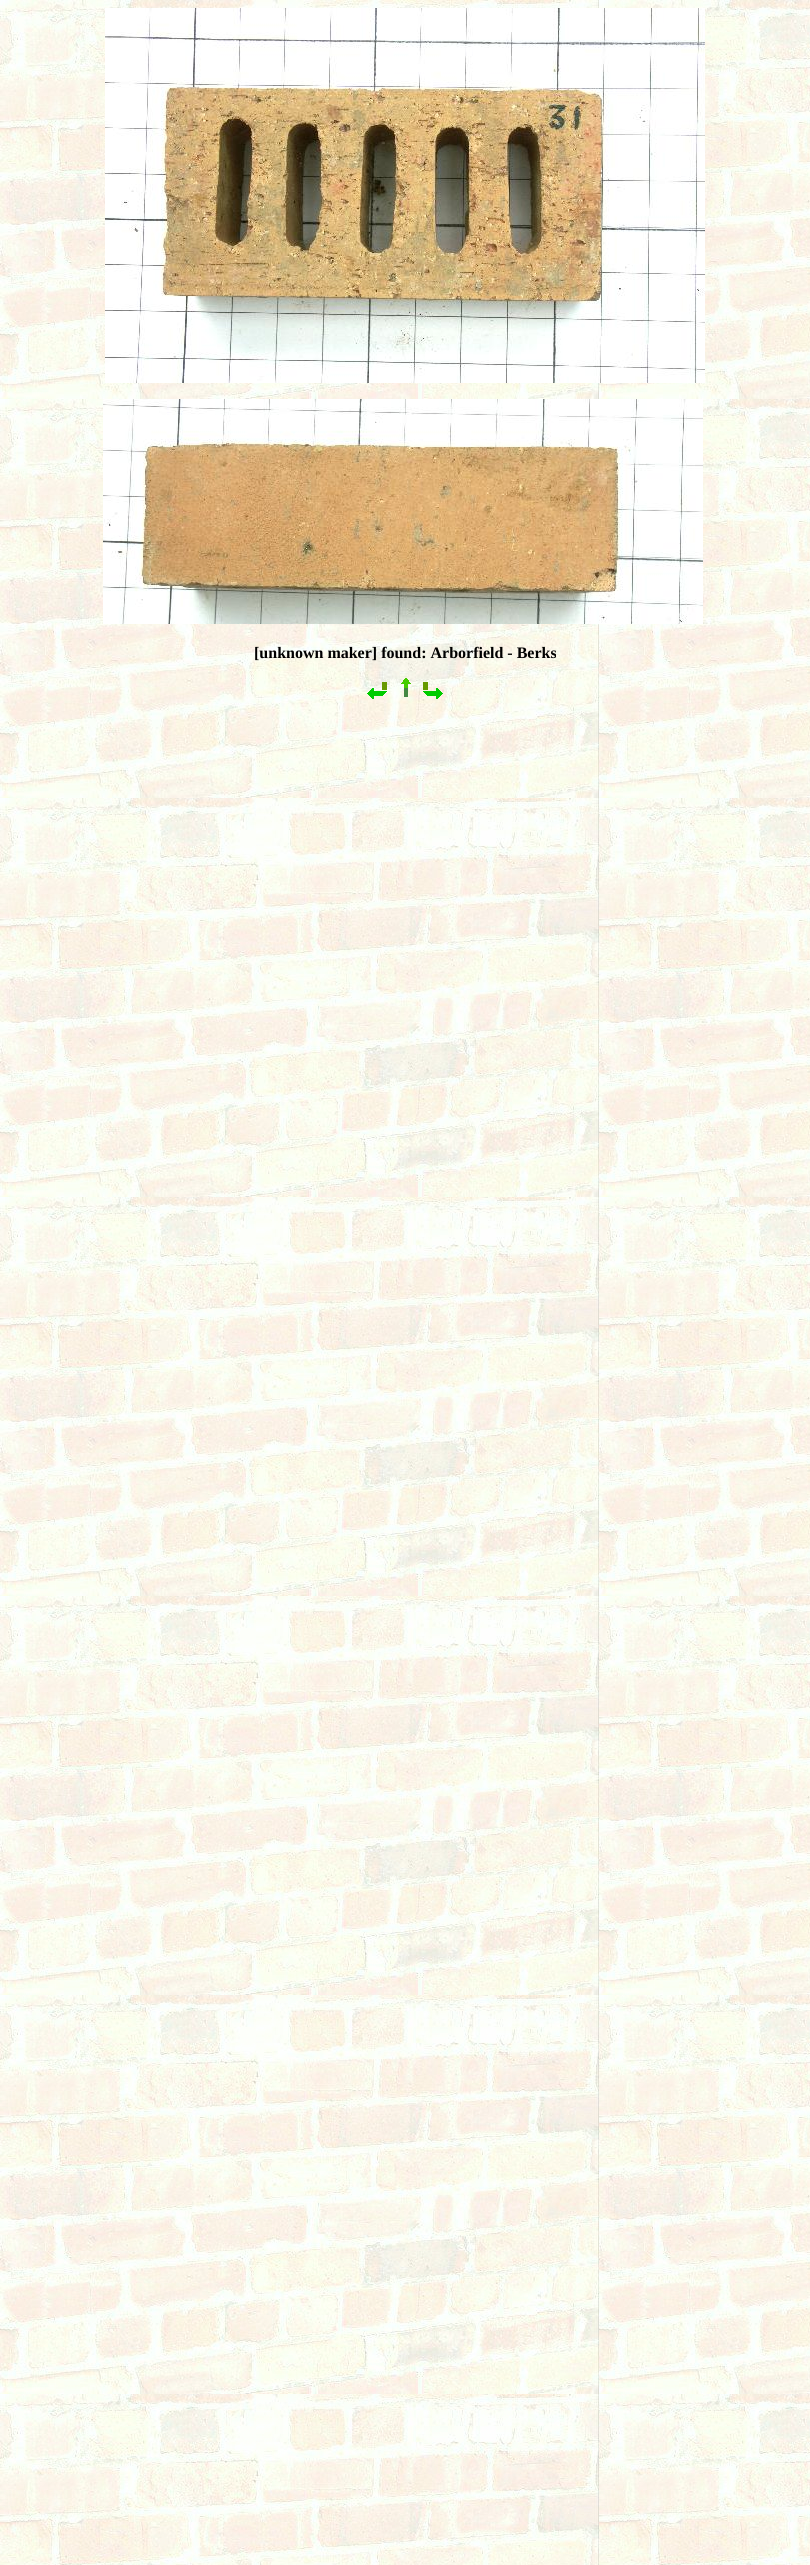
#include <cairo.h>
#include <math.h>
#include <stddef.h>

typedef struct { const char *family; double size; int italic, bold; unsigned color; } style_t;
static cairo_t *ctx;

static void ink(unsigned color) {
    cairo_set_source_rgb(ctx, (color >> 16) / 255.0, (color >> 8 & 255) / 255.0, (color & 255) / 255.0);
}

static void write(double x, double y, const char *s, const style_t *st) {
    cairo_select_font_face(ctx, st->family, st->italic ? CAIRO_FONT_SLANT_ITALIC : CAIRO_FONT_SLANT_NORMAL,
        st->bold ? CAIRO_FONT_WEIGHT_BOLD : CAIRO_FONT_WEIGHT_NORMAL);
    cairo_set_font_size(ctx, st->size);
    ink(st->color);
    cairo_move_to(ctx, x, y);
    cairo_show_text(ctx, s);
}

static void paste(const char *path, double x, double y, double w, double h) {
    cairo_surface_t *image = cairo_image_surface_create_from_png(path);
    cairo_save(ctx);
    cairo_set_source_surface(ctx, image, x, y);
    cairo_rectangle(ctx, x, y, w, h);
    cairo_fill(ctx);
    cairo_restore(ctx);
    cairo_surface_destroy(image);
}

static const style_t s1 = {"Liberation Serif", 16, 0, 1, 0x000000};

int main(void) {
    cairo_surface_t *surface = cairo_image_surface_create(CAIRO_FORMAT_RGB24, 810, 2565);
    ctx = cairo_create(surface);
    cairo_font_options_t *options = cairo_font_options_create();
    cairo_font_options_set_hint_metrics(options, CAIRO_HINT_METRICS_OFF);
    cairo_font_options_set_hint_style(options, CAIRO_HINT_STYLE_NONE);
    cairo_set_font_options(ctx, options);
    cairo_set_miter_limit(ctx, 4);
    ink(0xffffff);
    cairo_paint(ctx);
    paste("pic1.png", 0, 0, 810, 2565);
    paste("pic2.png", 105, 8, 600, 375);
    paste("pic3.png", 103, 399, 600, 225);
    write(254, 658, "[unknown maker] found: Arborfield - Berks", &s1);
    paste("pic4.png", 367, 682, 20, 17);
    paste("pic5.png", 401, 678, 10, 19);
    paste("pic6.png", 423, 682, 20, 17);
    cairo_surface_write_to_png(surface, "screenshot.png");
    cairo_font_options_destroy(options);
    cairo_destroy(ctx);
    cairo_surface_destroy(surface);
    return 0;
}
